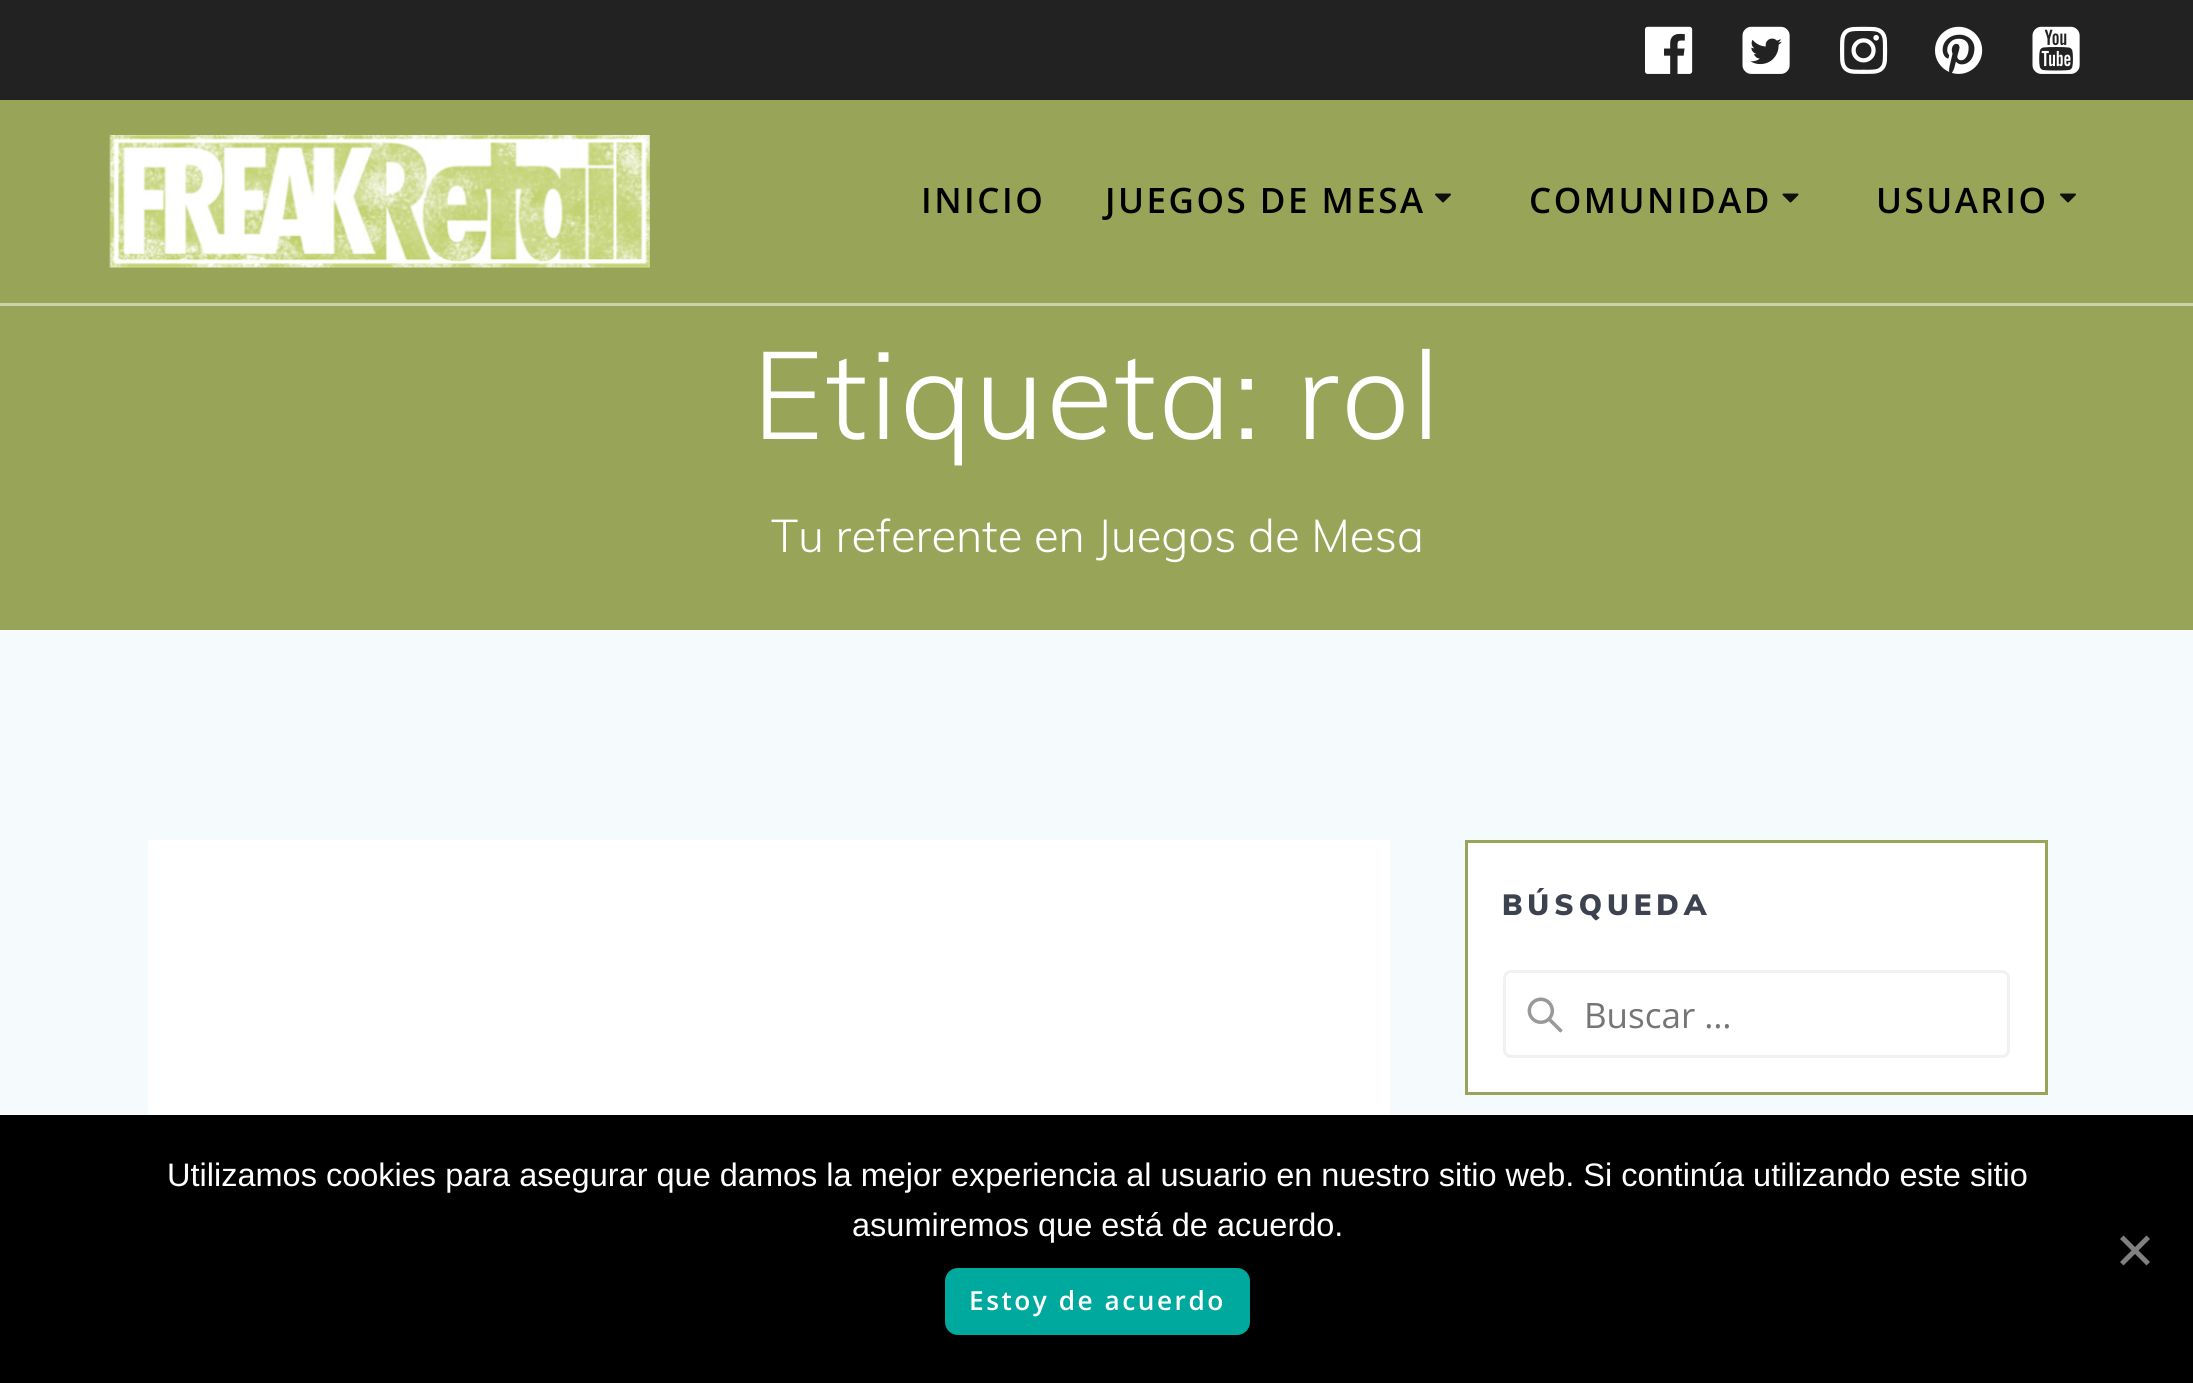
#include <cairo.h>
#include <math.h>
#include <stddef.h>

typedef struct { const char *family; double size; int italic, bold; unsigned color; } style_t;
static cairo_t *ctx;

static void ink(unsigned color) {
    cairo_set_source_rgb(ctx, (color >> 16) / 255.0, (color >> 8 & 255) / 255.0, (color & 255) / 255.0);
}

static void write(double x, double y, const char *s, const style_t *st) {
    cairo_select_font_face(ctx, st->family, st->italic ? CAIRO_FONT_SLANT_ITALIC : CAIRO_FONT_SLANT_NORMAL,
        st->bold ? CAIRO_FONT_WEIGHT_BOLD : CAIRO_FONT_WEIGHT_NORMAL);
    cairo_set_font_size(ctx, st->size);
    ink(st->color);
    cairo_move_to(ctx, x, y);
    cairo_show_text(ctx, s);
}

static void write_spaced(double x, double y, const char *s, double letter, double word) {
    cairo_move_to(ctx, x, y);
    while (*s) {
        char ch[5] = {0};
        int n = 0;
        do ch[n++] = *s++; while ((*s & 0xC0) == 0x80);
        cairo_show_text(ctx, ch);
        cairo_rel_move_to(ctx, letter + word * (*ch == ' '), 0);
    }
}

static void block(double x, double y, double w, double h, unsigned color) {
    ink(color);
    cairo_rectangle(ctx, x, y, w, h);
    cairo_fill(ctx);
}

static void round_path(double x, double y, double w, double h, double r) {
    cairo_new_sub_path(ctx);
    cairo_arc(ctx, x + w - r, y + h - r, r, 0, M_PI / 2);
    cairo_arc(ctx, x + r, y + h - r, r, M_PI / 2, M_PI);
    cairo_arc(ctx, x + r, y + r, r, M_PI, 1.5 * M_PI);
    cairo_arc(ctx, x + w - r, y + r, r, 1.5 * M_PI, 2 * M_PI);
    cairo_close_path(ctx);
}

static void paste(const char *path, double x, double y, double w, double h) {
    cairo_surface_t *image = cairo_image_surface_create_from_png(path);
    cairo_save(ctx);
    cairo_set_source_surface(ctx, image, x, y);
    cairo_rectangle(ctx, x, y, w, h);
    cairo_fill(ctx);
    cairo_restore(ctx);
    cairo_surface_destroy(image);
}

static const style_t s1 = {"Muli Light", 45.5, 0, 0, 0xffffff};
static const style_t s2 = {"Open Sans", 35, 0, 0, 0x757575};
static const style_t s3 = {"Liberation Sans", 32.5, 0, 0, 0xffffff};

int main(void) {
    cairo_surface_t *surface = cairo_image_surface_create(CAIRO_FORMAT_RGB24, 2193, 1383);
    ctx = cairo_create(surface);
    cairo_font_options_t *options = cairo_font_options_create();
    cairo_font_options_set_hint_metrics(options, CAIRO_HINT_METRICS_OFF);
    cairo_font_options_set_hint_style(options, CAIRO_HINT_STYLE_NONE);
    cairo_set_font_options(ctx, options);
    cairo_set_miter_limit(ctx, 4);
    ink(0x98a558);
    cairo_paint(ctx);
    block(0, 0, 2193, 100, 0x222222);
    paste("pic1.png", 1645, 26, 48, 48);
    paste("pic2.png", 1742, 26, 48, 48);
    paste("pic3.png", 1840, 26, 48, 48);
    paste("pic4.png", 1935, 26, 48, 48);
    paste("pic5.png", 2032, 26, 48, 48);
    block(0, 303, 2193, 3, 0xccd2ac);
    paste("pic6.png", 109, 135, 541, 133);
    cairo_select_font_face(ctx, "Open Sans SemiBold", CAIRO_FONT_SLANT_NORMAL, CAIRO_FONT_WEIGHT_NORMAL);
    cairo_set_font_size(ctx, 35);
    ink(0x000000);
    write_spaced(921, 213, "INICIO", 2.5, 0);
    write_spaced(1105, 213, "JUEGOS DE MESA", 2.5, 0);
    paste("pic7.png", 1435, 193, 16, 10);
    write_spaced(1529, 213, "COMUNIDAD", 2.5, 0);
    paste("pic8.png", 1782, 193, 17, 10);
    write_spaced(1876, 213, "USUARIO", 2.5, 0);
    paste("pic7.png", 2060, 193, 16, 10);
    cairo_select_font_face(ctx, "Muli Light", CAIRO_FONT_SLANT_NORMAL, CAIRO_FONT_WEIGHT_NORMAL);
    cairo_set_font_size(ctx, 122.5);
    ink(0xffffff);
    write_spaced(752, 439, "Etiqueta: rol", 2.25, 0);
    write(771, 552, "Tu referente en Juegos de Mesa", &s1);
    block(0, 630, 2193, 485, 0xf5fafd);
    block(148, 840, 1242, 275, 0xffffff);
    cairo_rectangle(ctx, 1466.5, 841.5, 580, 252);
    cairo_fill_preserve(ctx);
    ink(0x98a558);
    cairo_set_line_width(ctx, 3);
    cairo_stroke(ctx);
    cairo_select_font_face(ctx, "Muli Black", CAIRO_FONT_SLANT_NORMAL, CAIRO_FONT_WEIGHT_NORMAL);
    cairo_set_font_size(ctx, 29);
    ink(0x3c424f);
    write_spaced(1502, 915, "BÚSQUEDA", 5, 0);
    paste("pic9.png", 1527, 997, 36, 36);
    round_path(1504.5, 971.5, 504, 85, 6.5);
    ink(0xf1f1f1);
    cairo_stroke(ctx);
    write(1584, 1028, "Buscar …", &s2);
    block(0, 1115, 2193, 268, 0x000000);
    write(167, 1186, "Utilizamos cookies para asegurar que damos la mejor experiencia al usuario en nuestro sitio web. Si continúa utilizando este sitio", &s3);
    write(852, 1236, "asumiremos que está de acuerdo.", &s3);
    ink(0x808080);
    cairo_new_path(ctx);
    cairo_move_to(ctx, 2146.5, 1235.5);
    cairo_line_to(ctx, 2150, 1239);
    cairo_line_to(ctx, 2123.5, 1265.5);
    cairo_line_to(ctx, 2120, 1262);
    cairo_close_path(ctx);
    cairo_fill(ctx);
    cairo_new_path(ctx);
    cairo_move_to(ctx, 2120, 1239);
    cairo_line_to(ctx, 2123.5, 1235.5);
    cairo_line_to(ctx, 2150, 1262);
    cairo_line_to(ctx, 2146.5, 1265.5);
    cairo_close_path(ctx);
    cairo_fill(ctx);
    ink(0x00a99d);
    round_path(945, 1268, 305, 67, 13);
    cairo_fill(ctx);
    cairo_select_font_face(ctx, "Open Sans SemiBold", CAIRO_FONT_SLANT_NORMAL, CAIRO_FONT_WEIGHT_NORMAL);
    cairo_set_font_size(ctx, 26.25);
    ink(0xffffff);
    write_spaced(969, 1310, "Estoy de acuerdo", 2.5, 0);
    cairo_surface_write_to_png(surface, "screenshot.png");
    cairo_font_options_destroy(options);
    cairo_destroy(ctx);
    cairo_surface_destroy(surface);
    return 0;
}
